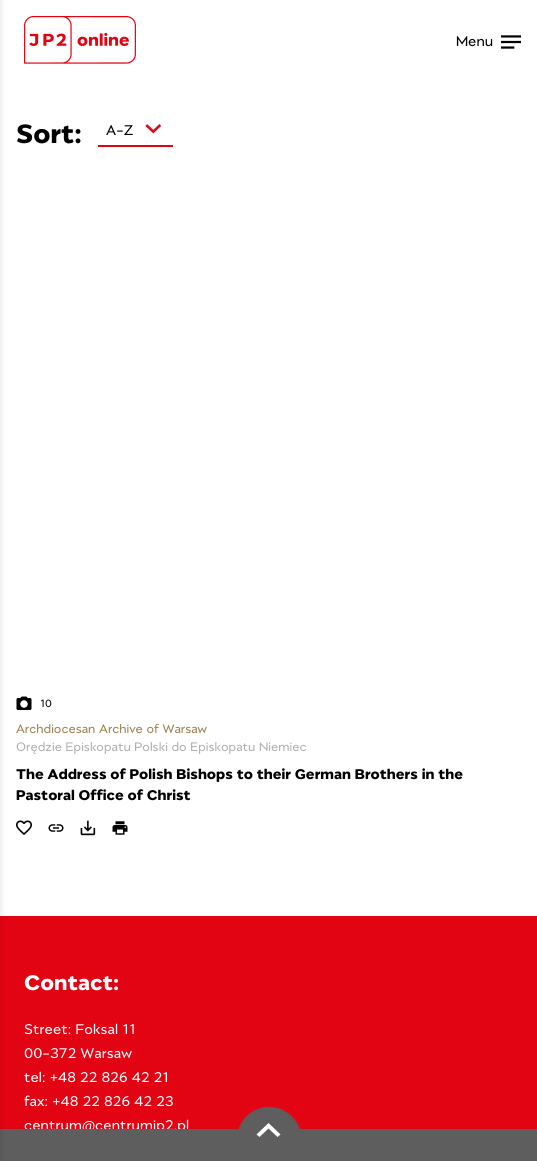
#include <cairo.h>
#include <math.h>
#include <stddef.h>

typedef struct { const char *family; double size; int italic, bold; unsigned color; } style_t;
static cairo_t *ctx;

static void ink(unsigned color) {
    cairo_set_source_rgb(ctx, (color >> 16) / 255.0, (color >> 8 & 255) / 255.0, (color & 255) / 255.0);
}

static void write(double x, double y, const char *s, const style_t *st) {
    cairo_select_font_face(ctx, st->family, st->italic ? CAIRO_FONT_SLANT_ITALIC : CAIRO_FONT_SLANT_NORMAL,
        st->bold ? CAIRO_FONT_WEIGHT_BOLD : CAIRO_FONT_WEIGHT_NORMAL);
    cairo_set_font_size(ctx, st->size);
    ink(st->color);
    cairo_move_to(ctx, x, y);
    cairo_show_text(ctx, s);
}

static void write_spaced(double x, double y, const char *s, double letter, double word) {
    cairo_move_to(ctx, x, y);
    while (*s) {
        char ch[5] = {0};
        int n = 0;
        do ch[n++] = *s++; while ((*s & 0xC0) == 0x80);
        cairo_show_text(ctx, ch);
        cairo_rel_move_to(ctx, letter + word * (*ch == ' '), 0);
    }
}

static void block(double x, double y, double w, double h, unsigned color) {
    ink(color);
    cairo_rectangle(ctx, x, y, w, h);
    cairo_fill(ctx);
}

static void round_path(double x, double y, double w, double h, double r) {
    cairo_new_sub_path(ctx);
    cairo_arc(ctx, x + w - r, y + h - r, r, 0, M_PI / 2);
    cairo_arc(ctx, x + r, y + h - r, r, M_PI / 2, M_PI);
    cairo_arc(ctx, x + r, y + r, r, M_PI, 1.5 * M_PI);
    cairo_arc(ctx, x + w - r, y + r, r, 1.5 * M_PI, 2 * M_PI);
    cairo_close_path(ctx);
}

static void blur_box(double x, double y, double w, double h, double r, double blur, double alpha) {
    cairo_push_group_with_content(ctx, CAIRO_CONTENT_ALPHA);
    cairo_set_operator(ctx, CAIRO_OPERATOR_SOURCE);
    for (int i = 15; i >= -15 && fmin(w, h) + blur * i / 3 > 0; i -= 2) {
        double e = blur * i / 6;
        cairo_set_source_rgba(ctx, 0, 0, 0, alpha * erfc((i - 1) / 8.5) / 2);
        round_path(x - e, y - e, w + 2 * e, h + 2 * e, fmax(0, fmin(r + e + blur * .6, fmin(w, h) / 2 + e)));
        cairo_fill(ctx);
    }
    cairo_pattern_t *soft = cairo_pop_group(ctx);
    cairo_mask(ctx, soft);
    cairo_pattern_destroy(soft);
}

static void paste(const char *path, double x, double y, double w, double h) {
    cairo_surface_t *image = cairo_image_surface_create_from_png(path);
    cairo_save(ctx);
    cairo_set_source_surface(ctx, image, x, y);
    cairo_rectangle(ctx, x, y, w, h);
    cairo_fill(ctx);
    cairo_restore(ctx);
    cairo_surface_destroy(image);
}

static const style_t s1 = {"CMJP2", 16, 0, 0, 0x000000};
static const style_t s2 = {"CMJP2 SemiBold", 30, 0, 0, 0x000000};
static const style_t s3 = {"CMJP2", 12, 0, 0, 0x000000};
static const style_t s4 = {"CMJP2 SemiBold", 24, 0, 0, 0xffffff};

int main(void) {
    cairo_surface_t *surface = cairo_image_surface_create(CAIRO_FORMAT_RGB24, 537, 1161);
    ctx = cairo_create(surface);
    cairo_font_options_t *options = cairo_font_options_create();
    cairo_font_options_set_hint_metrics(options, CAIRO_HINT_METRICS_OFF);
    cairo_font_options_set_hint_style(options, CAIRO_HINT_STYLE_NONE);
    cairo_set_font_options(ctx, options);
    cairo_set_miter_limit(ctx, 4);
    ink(0xffffff);
    cairo_paint(ctx);
    block(0, 916, 537, 213, 0xe30413);
    ink(0x000000);
    blur_box(2, 1130, 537, 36, 0, 1.5, 0.22);
    cairo_select_font_face(ctx, "CMJP2", CAIRO_FONT_SLANT_NORMAL, CAIRO_FONT_WEIGHT_NORMAL);
    cairo_set_font_size(ctx, 16);
    ink(0xffffff);
    write_spaced(24, 1130, "centrum@centrumjp2.pl", 0.1, 0);
    block(0, 1129, 537, 32, 0x5e5e5e);
    ink(0x000000);
    blur_box(-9, 0, 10, 1161, 0, 3, 0.1);
    paste("pic1.png", 24, 16, 112, 48);
    write(456, 46, "Menu", &s1);
    paste("pic2.png", 501, 35, 20, 14);
    write(16, 143, "Sort:", &s2);
    block(98, 145, 75, 2, 0xe30413);
    write(106, 135, "A-Z", &s1);
    paste("pic3.png", 145, 124, 16, 10);
    paste("pic4.png", 16, 696, 16, 14);
    write(40, 707, "10", &s3);
    cairo_set_font_size(ctx, 14);
    ink(0x9b824d);
    write_spaced(16, 733, "Archdiocesan Archive of Warsaw", 0, 1);
    ink(0xafafaf);
    write_spaced(16, 751, "Orędzie Episkopatu Polski do Episkopatu Niemiec", 0, 1);
    cairo_select_font_face(ctx, "CMJP2 SemiBold", CAIRO_FONT_SLANT_NORMAL, CAIRO_FONT_WEIGHT_NORMAL);
    cairo_set_font_size(ctx, 16);
    ink(0x000000);
    write_spaced(16, 779, "The Address of Polish Bishops to their German Brothers in the", 0, 1);
    write_spaced(16, 800, "Pastoral Office of Christ", 0, 1);
    paste("pic5.png", 16, 820, 16, 15);
    paste("pic6.png", 48, 824, 16, 8);
    paste("pic7.png", 80, 820, 16, 16);
    paste("pic8.png", 112, 821, 16, 14);
    ink(0x5f5f5f);
    blur_box(239, 1108, 64, 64, 32, 1.5, 0.22);
    ink(0x5e5e5e);
    cairo_arc(ctx, 269, 1139, 32, 0, 2 * M_PI);
    cairo_fill(ctx);
    ink(0xffffff);
    cairo_set_fill_rule(ctx, CAIRO_FILL_RULE_EVEN_ODD);
    cairo_new_path(ctx);
    cairo_move_to(ctx, 256.5, 1134.5);
    cairo_line_to(ctx, 259.5, 1137);
    cairo_line_to(ctx, 268.5, 1128.5);
    cairo_line_to(ctx, 277.5, 1137);
    cairo_line_to(ctx, 280.5, 1134.5);
    cairo_line_to(ctx, 268.5, 1123);
    cairo_close_path(ctx);
    cairo_fill(ctx);
    write(24, 990, "Contact:", &s4);
    cairo_select_font_face(ctx, "CMJP2", CAIRO_FONT_SLANT_NORMAL, CAIRO_FONT_WEIGHT_NORMAL);
    cairo_set_font_size(ctx, 16);
    write_spaced(24, 1034, "Street: Foksal 11", 0.1, 1);
    write_spaced(24, 1058, "00-372 Warsaw", 0.1, 1);
    write_spaced(24, 1082, "tel: +48 22 826 42 21", 0.1, 1);
    write_spaced(24, 1106, "fax: +48 22 826 42 23", 0.1, 1);
    cairo_surface_write_to_png(surface, "screenshot.png");
    cairo_font_options_destroy(options);
    cairo_destroy(ctx);
    cairo_surface_destroy(surface);
    return 0;
}
